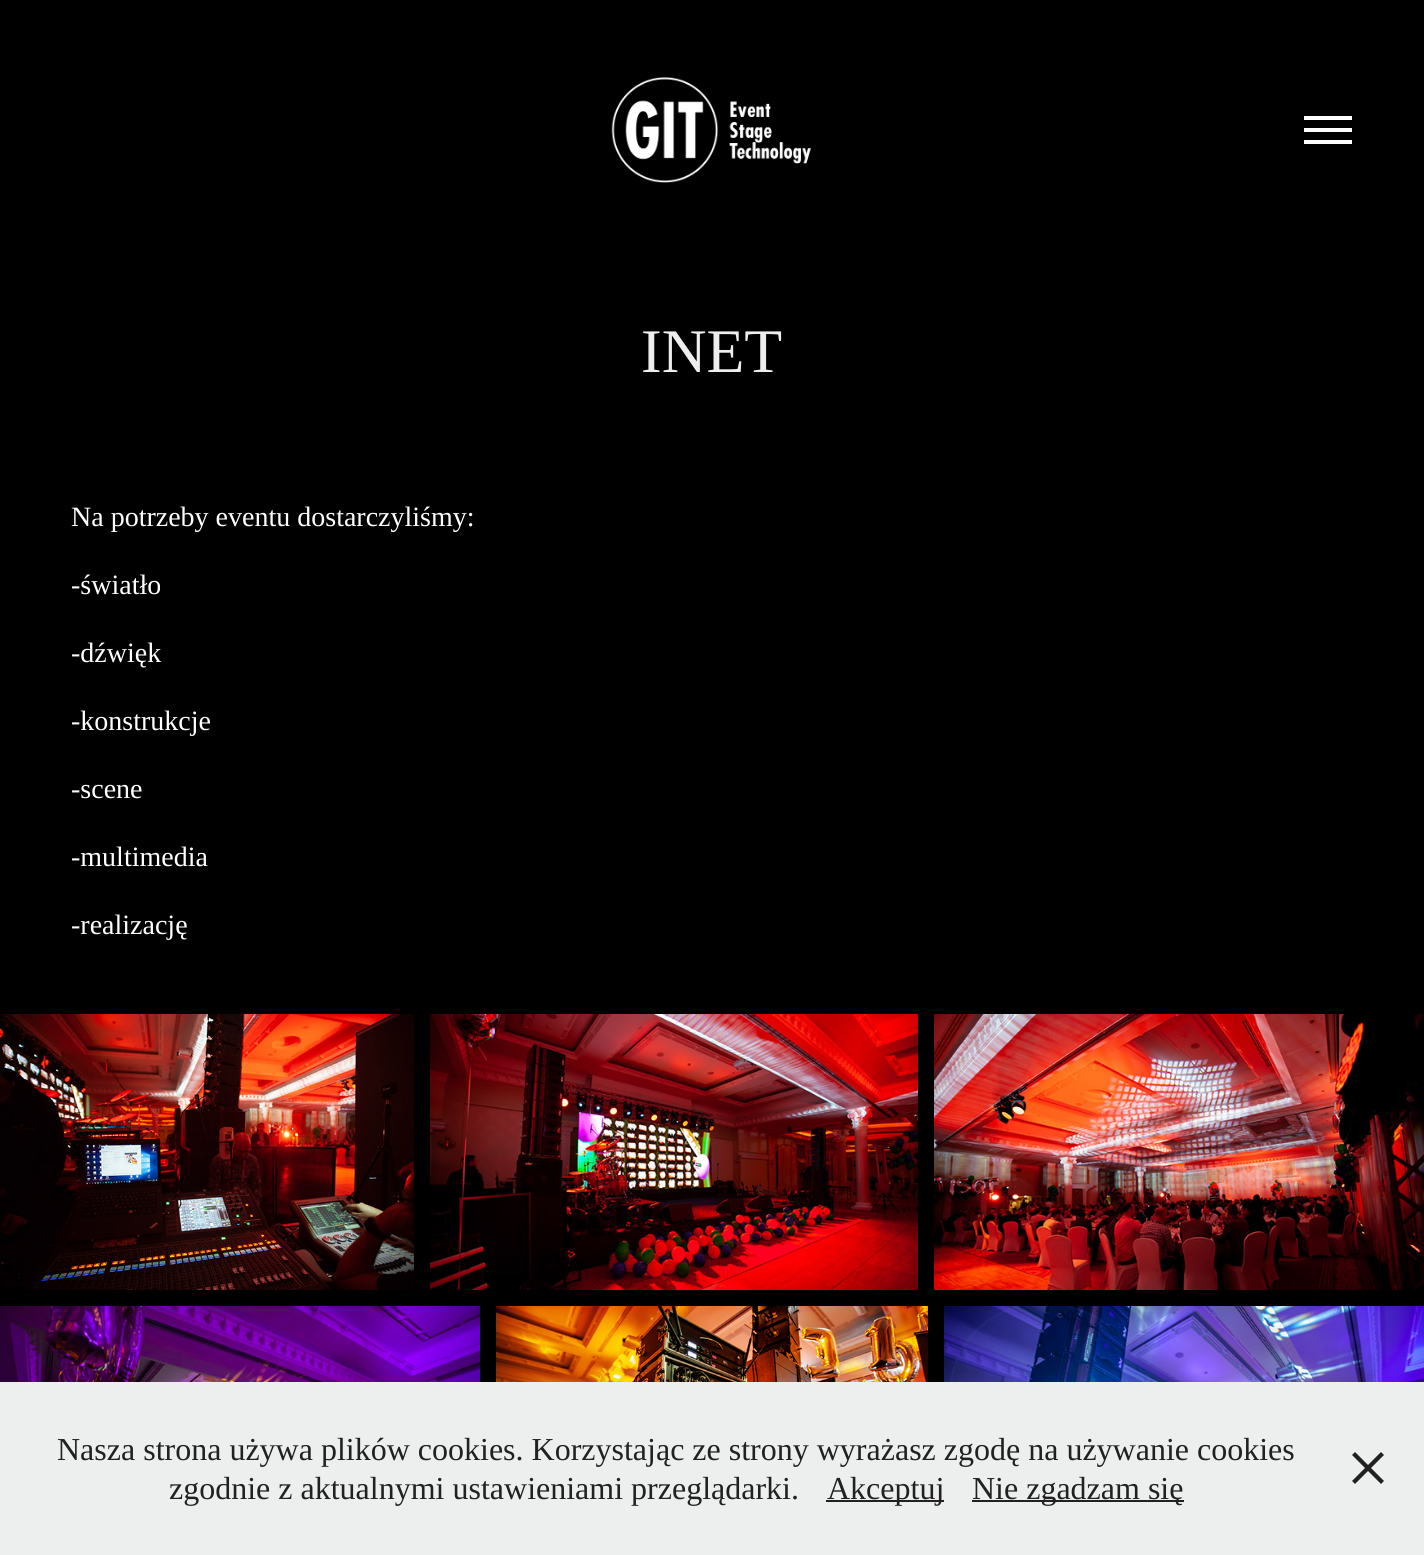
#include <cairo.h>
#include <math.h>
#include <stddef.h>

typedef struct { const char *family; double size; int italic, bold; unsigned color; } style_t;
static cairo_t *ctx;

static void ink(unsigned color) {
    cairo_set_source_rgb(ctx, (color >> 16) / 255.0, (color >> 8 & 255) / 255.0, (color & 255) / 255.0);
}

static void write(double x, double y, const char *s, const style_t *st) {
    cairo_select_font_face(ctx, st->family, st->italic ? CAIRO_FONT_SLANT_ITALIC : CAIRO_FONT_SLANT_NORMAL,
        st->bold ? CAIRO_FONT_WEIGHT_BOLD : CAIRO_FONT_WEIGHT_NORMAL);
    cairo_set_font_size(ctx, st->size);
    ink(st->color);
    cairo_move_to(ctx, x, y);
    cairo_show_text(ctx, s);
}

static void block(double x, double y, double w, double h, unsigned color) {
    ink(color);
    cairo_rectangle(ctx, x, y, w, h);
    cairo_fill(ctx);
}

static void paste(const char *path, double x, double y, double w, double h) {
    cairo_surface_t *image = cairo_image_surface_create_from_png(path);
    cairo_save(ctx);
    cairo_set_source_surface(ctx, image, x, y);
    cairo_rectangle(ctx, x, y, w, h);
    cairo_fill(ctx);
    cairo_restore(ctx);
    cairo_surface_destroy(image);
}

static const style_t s1 = {"Liberation Serif", 62, 0, 0, 0xeeeeee};
static const style_t s2 = {"Liberation Serif", 28, 0, 0, 0xffffff};
static const style_t s3 = {"Liberation Serif", 32, 0, 0, 0x212121};

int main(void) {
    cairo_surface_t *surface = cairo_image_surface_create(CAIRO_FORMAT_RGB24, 1424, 1555);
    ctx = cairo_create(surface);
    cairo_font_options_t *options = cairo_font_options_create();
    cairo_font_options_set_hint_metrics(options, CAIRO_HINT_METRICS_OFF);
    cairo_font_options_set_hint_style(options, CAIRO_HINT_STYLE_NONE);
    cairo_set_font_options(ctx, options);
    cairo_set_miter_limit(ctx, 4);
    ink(0x000000);
    cairo_paint(ctx);
    paste("pic1.png", 611, 77, 200, 106);
    block(1304, 116, 48, 4, 0xffffff);
    block(1304, 128, 48, 4, 0xffffff);
    block(1304, 140, 48, 4, 0xffffff);
    write(641, 372, "INET", &s1);
    write(71, 526, "Na potrzeby eventu dostarczyliśmy:", &s2);
    write(71, 594, "-światło", &s2);
    write(71, 662, "-dźwięk", &s2);
    write(71, 730, "-konstrukcje", &s2);
    write(71, 798, "-scene", &s2);
    write(71, 866, "-multimedia", &s2);
    write(71, 934, "-realizację", &s2);
    paste("pic2.png", 0, 1014, 414, 276);
    paste("pic3.png", 430, 1014, 488, 276);
    paste("pic4.png", 934, 1014, 490, 276);
    paste("pic5.png", 0, 1306, 480, 76);
    paste("pic6.png", 496, 1306, 432, 76);
    paste("pic7.png", 944, 1306, 480, 76);
    block(0, 1382, 1424, 173, 0xedeeee);
    write(57, 1460, "Nasza strona używa plików cookies. Korzystając ze strony wyrażasz zgodę na używanie cookies", &s3);
    write(169, 1499, "zgodnie z aktualnymi ustawieniami przeglądarki.", &s3);
    block(826, 1500, 118, 2, 0x212121);
    write(827, 1499, "Akceptuj", &s3);
    block(972, 1500, 212, 2, 0x212121);
    write(972, 1499, "Nie zgadzam się", &s3);
    cairo_new_path(ctx);
    cairo_move_to(ctx, 1352, 1455);
    cairo_line_to(ctx, 1355, 1452);
    cairo_line_to(ctx, 1384, 1481);
    cairo_line_to(ctx, 1381, 1484);
    cairo_close_path(ctx);
    cairo_fill(ctx);
    cairo_new_path(ctx);
    cairo_move_to(ctx, 1355, 1484);
    cairo_line_to(ctx, 1352, 1481);
    cairo_line_to(ctx, 1381, 1452);
    cairo_line_to(ctx, 1384, 1455);
    cairo_close_path(ctx);
    cairo_fill(ctx);
    cairo_surface_write_to_png(surface, "screenshot.png");
    cairo_font_options_destroy(options);
    cairo_destroy(ctx);
    cairo_surface_destroy(surface);
    return 0;
}
